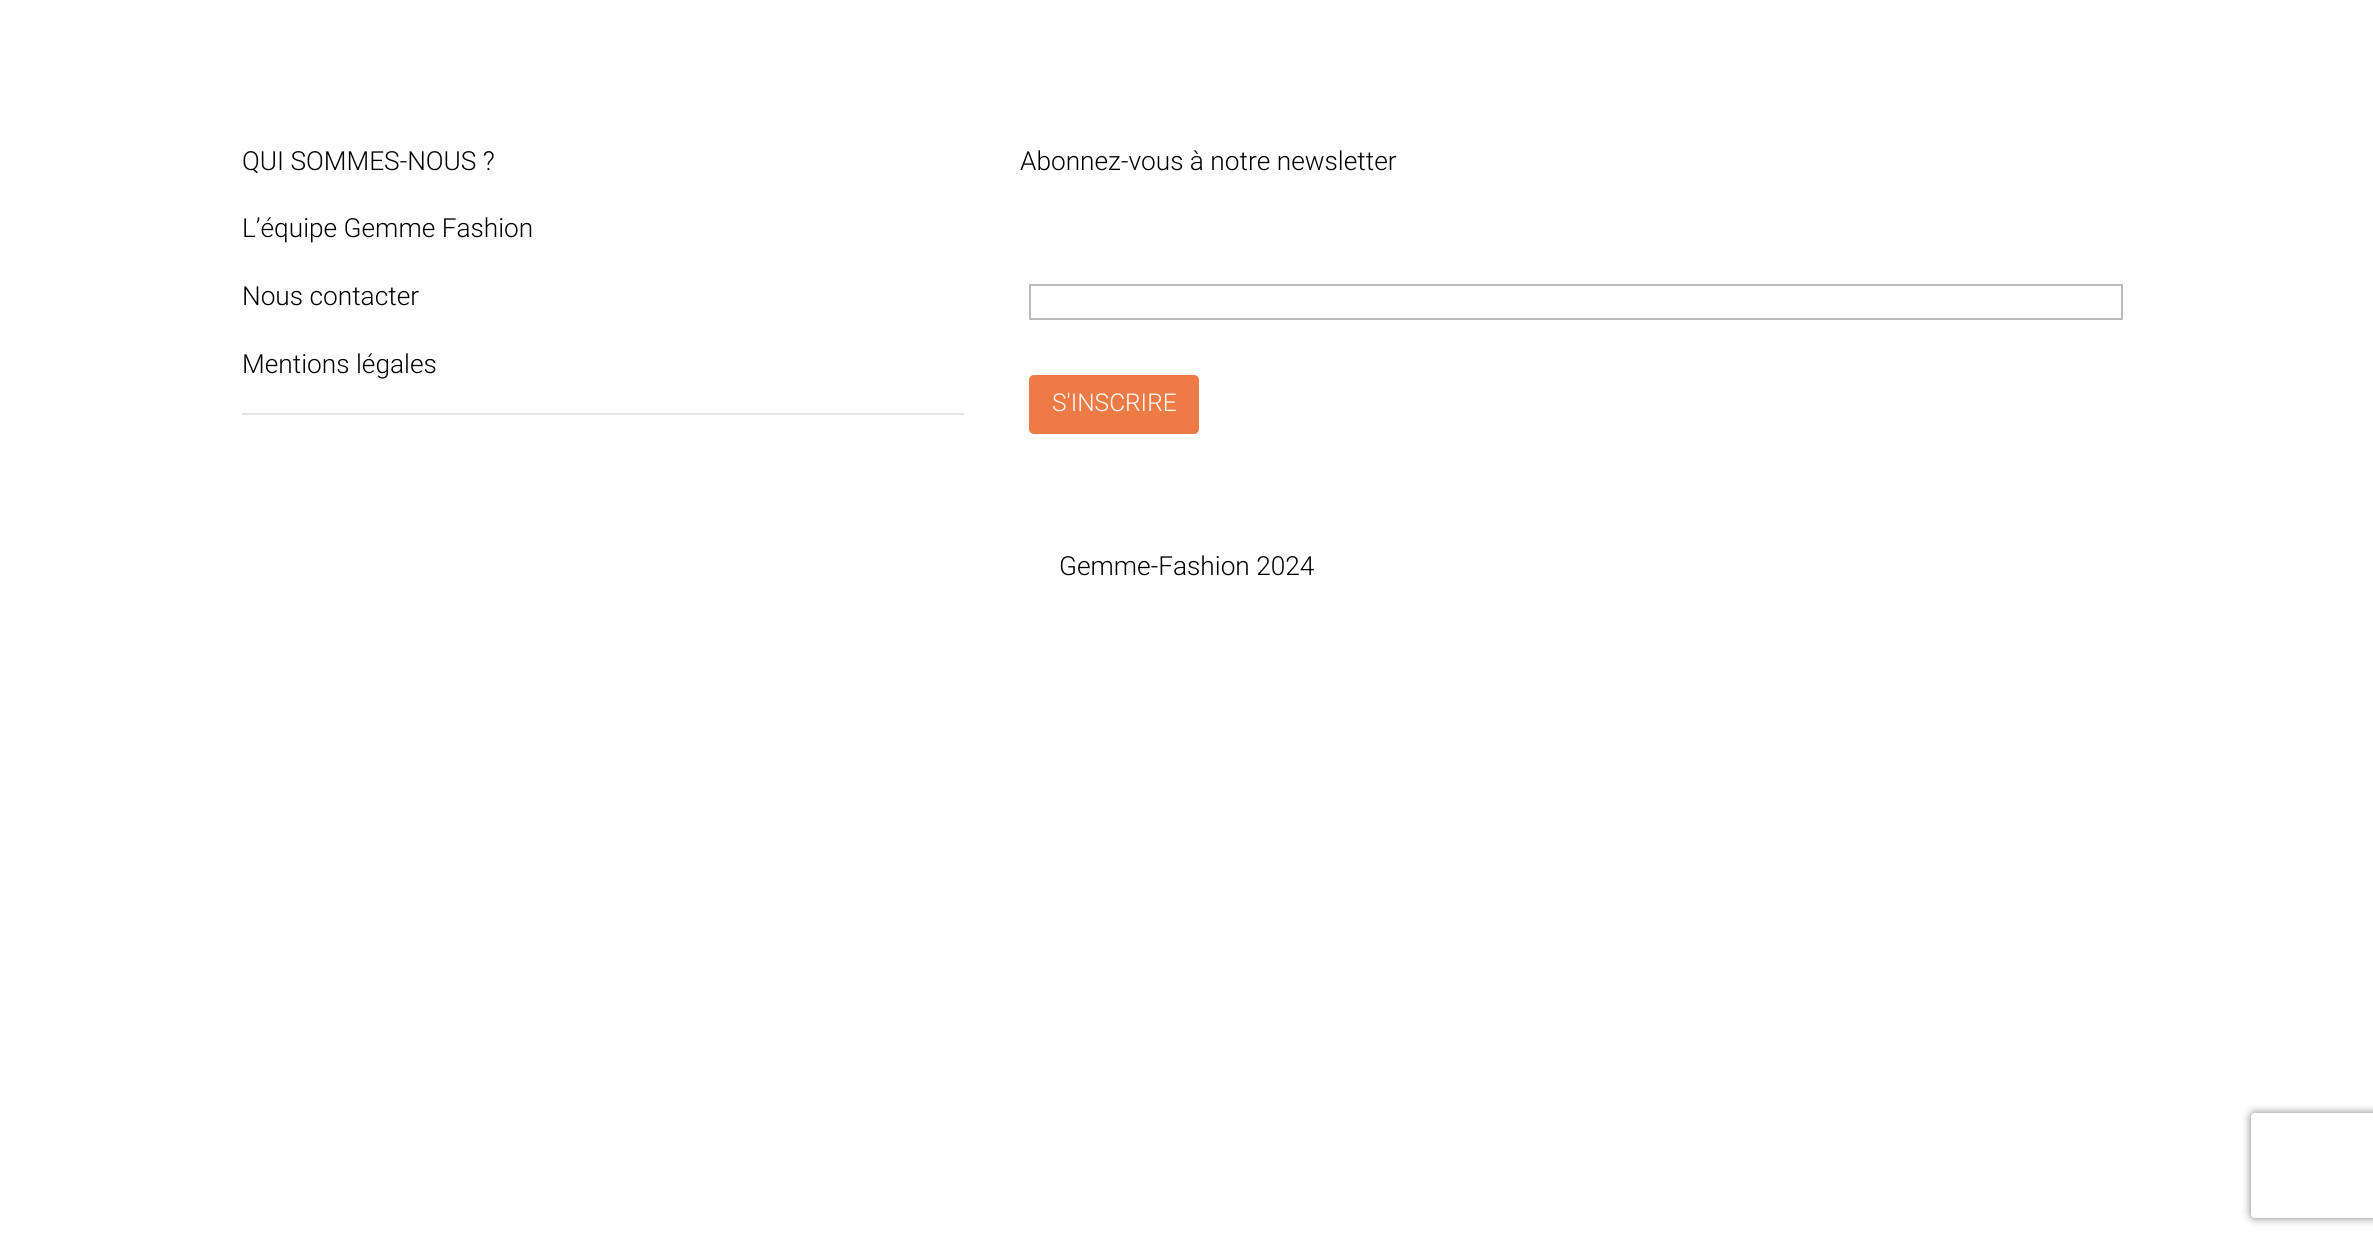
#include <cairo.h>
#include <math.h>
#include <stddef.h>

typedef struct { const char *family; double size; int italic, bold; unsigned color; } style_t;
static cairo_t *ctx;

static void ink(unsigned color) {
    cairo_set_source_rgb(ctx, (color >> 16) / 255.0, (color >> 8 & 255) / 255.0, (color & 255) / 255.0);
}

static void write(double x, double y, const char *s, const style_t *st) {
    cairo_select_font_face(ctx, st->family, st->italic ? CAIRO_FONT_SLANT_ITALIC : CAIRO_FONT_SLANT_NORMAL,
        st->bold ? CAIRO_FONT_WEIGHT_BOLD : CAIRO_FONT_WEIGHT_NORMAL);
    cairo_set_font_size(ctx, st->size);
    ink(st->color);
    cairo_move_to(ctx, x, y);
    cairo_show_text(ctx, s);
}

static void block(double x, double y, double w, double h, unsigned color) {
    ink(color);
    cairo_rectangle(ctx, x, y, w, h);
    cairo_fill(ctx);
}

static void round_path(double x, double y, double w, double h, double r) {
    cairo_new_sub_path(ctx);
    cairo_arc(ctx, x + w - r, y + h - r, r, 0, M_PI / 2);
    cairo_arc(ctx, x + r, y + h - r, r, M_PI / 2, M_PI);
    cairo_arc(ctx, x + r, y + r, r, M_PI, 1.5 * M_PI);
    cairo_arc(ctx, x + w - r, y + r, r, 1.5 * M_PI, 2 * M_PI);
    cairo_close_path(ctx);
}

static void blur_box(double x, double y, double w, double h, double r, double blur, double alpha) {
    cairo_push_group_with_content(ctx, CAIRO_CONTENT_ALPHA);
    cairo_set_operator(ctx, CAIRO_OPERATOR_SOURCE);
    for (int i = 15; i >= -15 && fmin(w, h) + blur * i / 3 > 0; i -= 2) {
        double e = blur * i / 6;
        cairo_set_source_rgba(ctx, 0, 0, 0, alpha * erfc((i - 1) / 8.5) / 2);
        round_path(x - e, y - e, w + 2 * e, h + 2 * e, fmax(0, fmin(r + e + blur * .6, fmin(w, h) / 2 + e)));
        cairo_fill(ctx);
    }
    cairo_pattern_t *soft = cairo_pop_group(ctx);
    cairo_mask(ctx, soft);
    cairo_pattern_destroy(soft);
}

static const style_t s1 = {"Roboto Light", 26.25, 0, 0, 0x000000};
static const style_t s2 = {"Roboto Light", 24.5, 0, 0, 0xffffff};

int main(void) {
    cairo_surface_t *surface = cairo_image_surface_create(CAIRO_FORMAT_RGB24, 2373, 1241);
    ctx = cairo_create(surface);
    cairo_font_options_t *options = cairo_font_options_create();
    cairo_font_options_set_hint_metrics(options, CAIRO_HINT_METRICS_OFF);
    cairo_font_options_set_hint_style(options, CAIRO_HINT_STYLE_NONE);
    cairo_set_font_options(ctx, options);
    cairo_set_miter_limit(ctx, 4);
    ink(0xffffff);
    cairo_paint(ctx);
    write(242, 170, "QUI SOMMES-NOUS ?", &s1);
    write(242, 237, "L’équipe Gemme Fashion", &s1);
    write(242, 305, "Nous contacter", &s1);
    write(242, 373, "Mentions légales", &s1);
    block(242, 413, 722, 2, 0xe6e6e6);
    write(1020, 170, "Abonnez-vous à notre newsletter", &s1);
    cairo_rectangle(ctx, 1030, 285, 1092, 34);
    ink(0xbbbbbb);
    cairo_stroke(ctx);
    ink(0xee7b46);
    round_path(1029, 375, 170, 59, 5);
    cairo_fill(ctx);
    write(1052, 411, "S'INSCRIRE", &s2);
    write(1059, 575, "Gemme-Fashion 2024", &s1);
    cairo_save(ctx);
    cairo_set_fill_rule(ctx, CAIRO_FILL_RULE_EVEN_ODD);
    cairo_new_path(ctx);
    cairo_move_to(ctx, 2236, 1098);
    cairo_line_to(ctx, 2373, 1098);
    cairo_line_to(ctx, 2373, 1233);
    cairo_line_to(ctx, 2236, 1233);
    cairo_close_path(ctx);
    cairo_move_to(ctx, 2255, 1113);
    cairo_line_to(ctx, 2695, 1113);
    cairo_curve_to(ctx, 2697, 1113, 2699, 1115, 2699, 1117);
    cairo_line_to(ctx, 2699, 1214);
    cairo_curve_to(ctx, 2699, 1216, 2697, 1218, 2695, 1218);
    cairo_line_to(ctx, 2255, 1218);
    cairo_curve_to(ctx, 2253, 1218, 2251, 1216, 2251, 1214);
    cairo_line_to(ctx, 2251, 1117);
    cairo_curve_to(ctx, 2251, 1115, 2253, 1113, 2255, 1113);
    cairo_close_path(ctx);
    cairo_clip(ctx);
    ink(0x808080);
    blur_box(2251, 1113, 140, 105, 4, 4.5, 1);
    cairo_restore(ctx);
    cairo_surface_write_to_png(surface, "screenshot.png");
    cairo_font_options_destroy(options);
    cairo_destroy(ctx);
    cairo_surface_destroy(surface);
    return 0;
}
